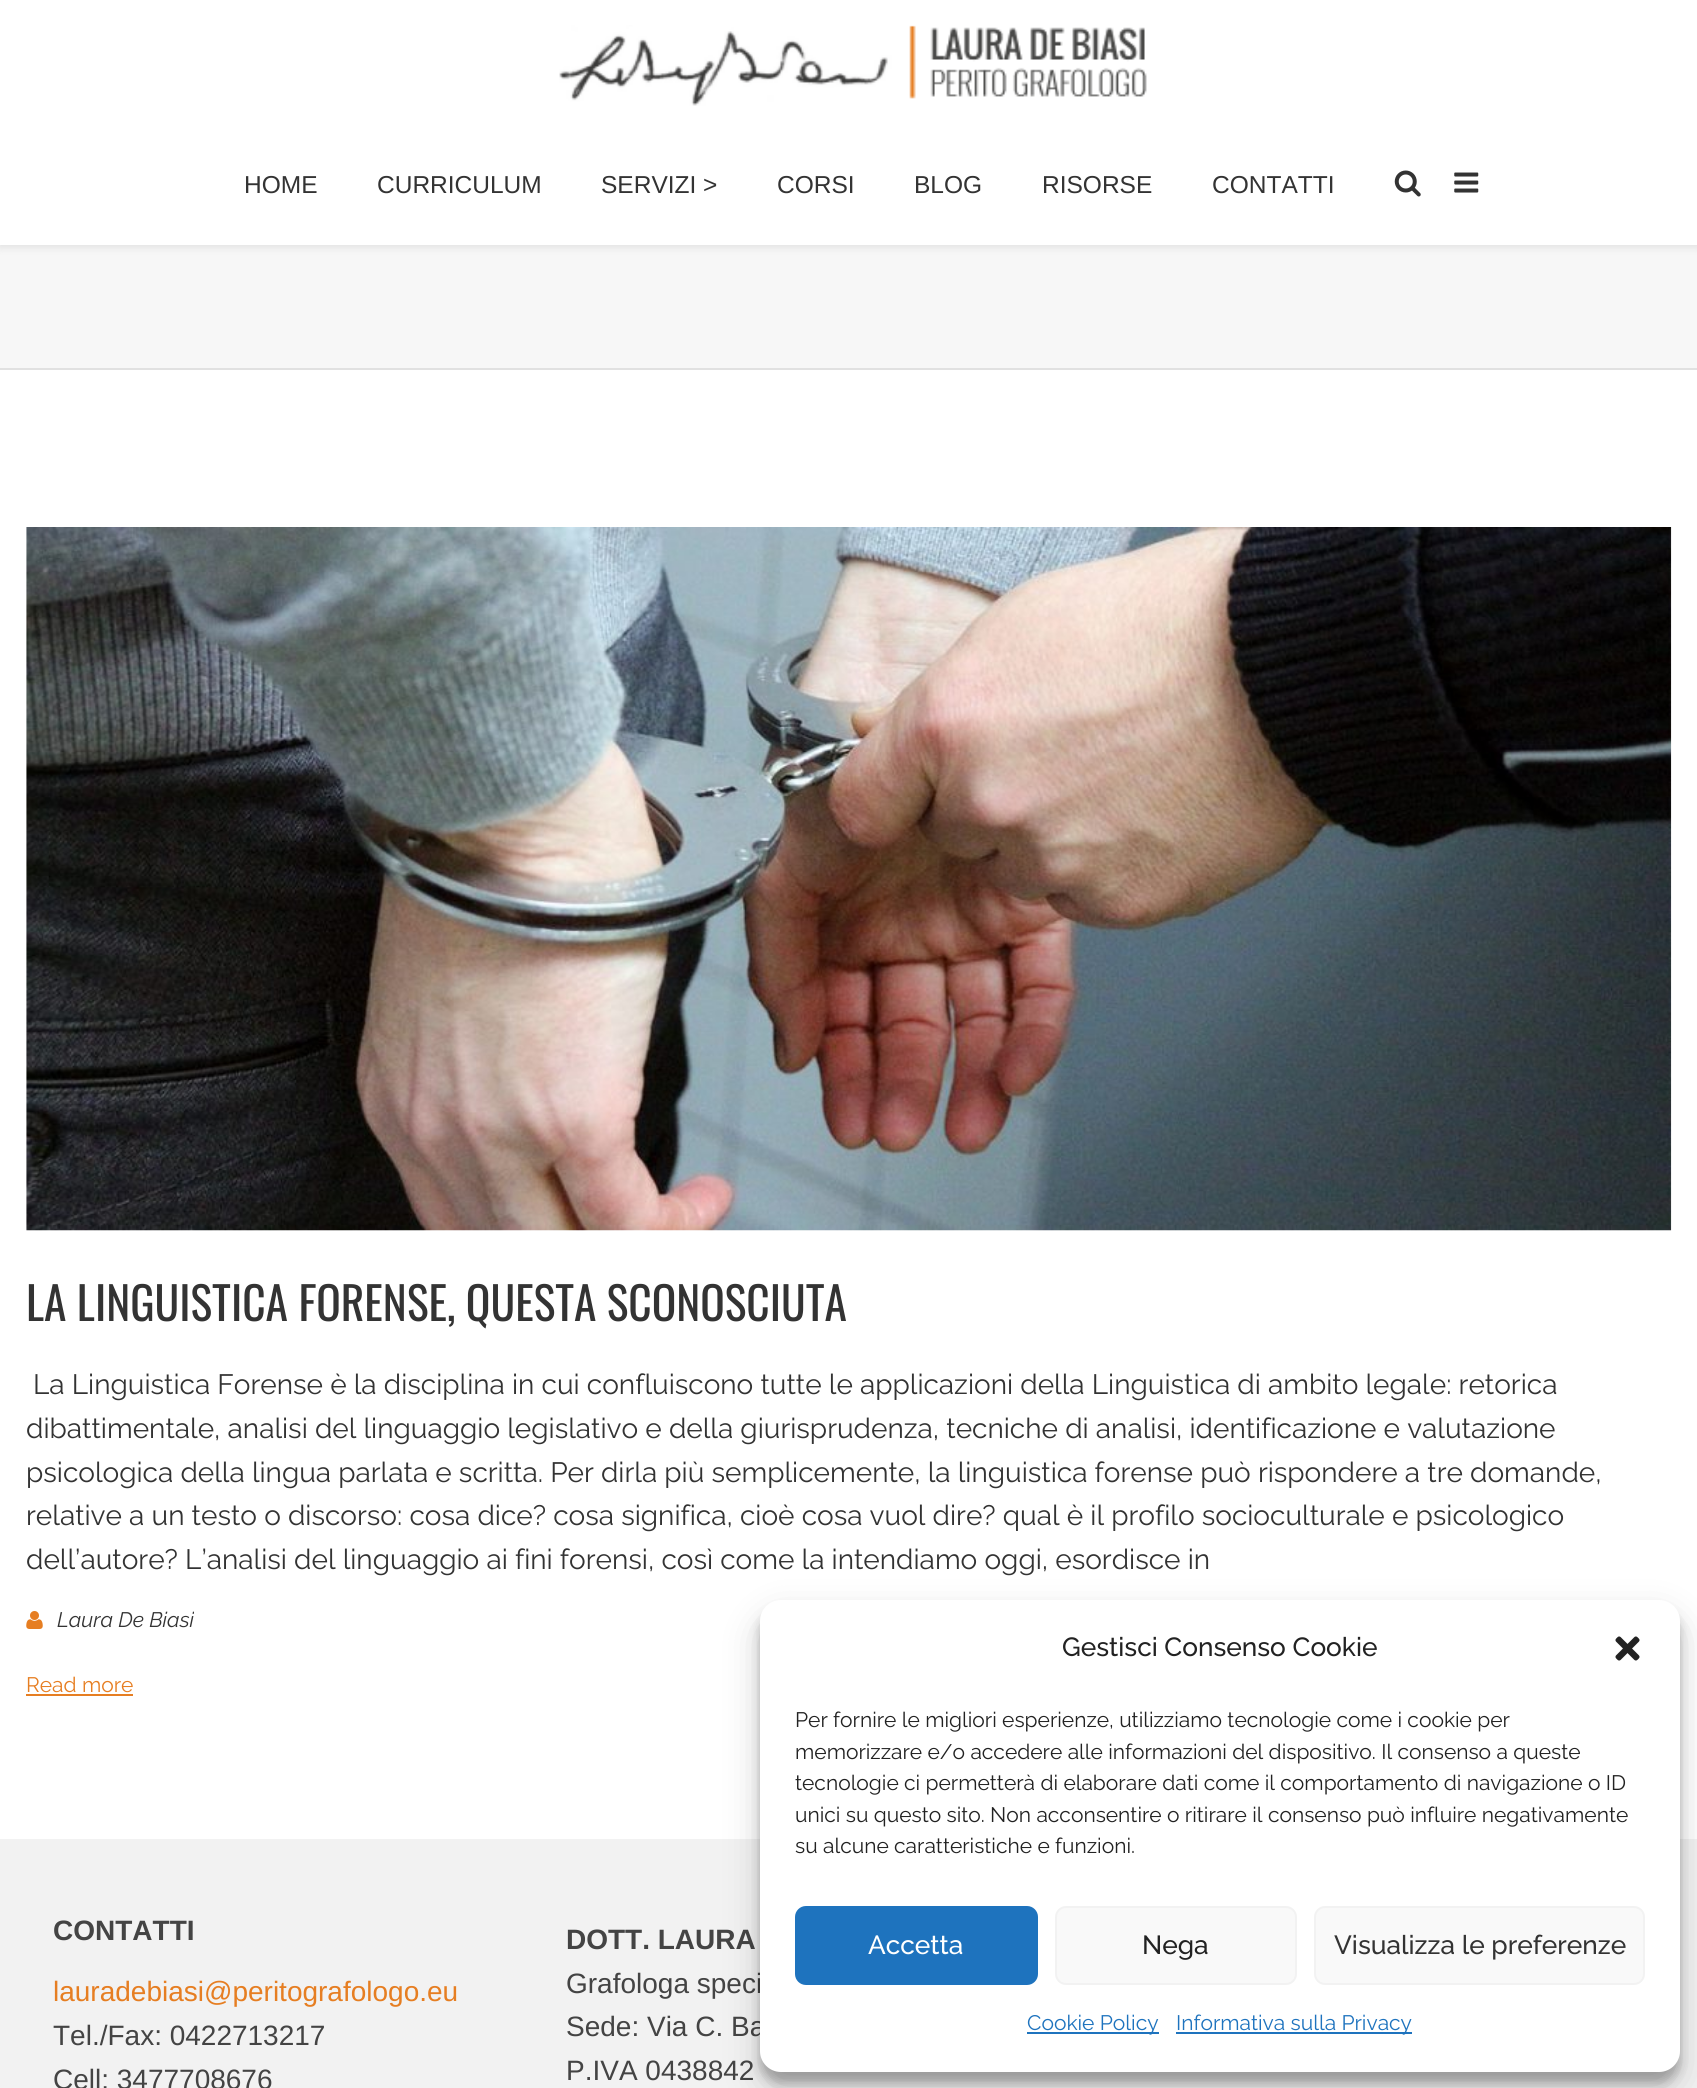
#include <cairo.h>
#include <math.h>
#include <stddef.h>

typedef struct { const char *family; double size; int italic, bold; unsigned color; } style_t;
static cairo_t *ctx;

static void ink(unsigned color) {
    cairo_set_source_rgb(ctx, (color >> 16) / 255.0, (color >> 8 & 255) / 255.0, (color & 255) / 255.0);
}

static void write(double x, double y, const char *s, const style_t *st) {
    cairo_select_font_face(ctx, st->family, st->italic ? CAIRO_FONT_SLANT_ITALIC : CAIRO_FONT_SLANT_NORMAL,
        st->bold ? CAIRO_FONT_WEIGHT_BOLD : CAIRO_FONT_WEIGHT_NORMAL);
    cairo_set_font_size(ctx, st->size);
    ink(st->color);
    cairo_move_to(ctx, x, y);
    cairo_show_text(ctx, s);
}

static void block(double x, double y, double w, double h, unsigned color) {
    ink(color);
    cairo_rectangle(ctx, x, y, w, h);
    cairo_fill(ctx);
}

static void round_path(double x, double y, double w, double h, double r) {
    cairo_new_sub_path(ctx);
    cairo_arc(ctx, x + w - r, y + h - r, r, 0, M_PI / 2);
    cairo_arc(ctx, x + r, y + h - r, r, M_PI / 2, M_PI);
    cairo_arc(ctx, x + r, y + r, r, M_PI, 1.5 * M_PI);
    cairo_arc(ctx, x + w - r, y + r, r, 1.5 * M_PI, 2 * M_PI);
    cairo_close_path(ctx);
}

static void blur_box(double x, double y, double w, double h, double r, double blur, double alpha) {
    cairo_push_group_with_content(ctx, CAIRO_CONTENT_ALPHA);
    cairo_set_operator(ctx, CAIRO_OPERATOR_SOURCE);
    for (int i = 15; i >= -15 && fmin(w, h) + blur * i / 3 > 0; i -= 2) {
        double e = blur * i / 6;
        cairo_set_source_rgba(ctx, 0, 0, 0, alpha * erfc((i - 1) / 8.5) / 2);
        round_path(x - e, y - e, w + 2 * e, h + 2 * e, fmax(0, fmin(r + e + blur * .6, fmin(w, h) / 2 + e)));
        cairo_fill(ctx);
    }
    cairo_pattern_t *soft = cairo_pop_group(ctx);
    cairo_mask(ctx, soft);
    cairo_pattern_destroy(soft);
}

static void paste(const char *path, double x, double y, double w, double h) {
    cairo_surface_t *image = cairo_image_surface_create_from_png(path);
    cairo_save(ctx);
    cairo_set_source_surface(ctx, image, x, y);
    cairo_rectangle(ctx, x, y, w, h);
    cairo_fill(ctx);
    cairo_restore(ctx);
    cairo_surface_destroy(image);
}

static const style_t s1 = {"Arimo", 24.5, 0, 0, 0x333333};
static const style_t s2 = {"Oswald", 45.5, 0, 0, 0x333333};
static const style_t s3 = {"Raleway", 28, 0, 0, 0x333333};
static const style_t s4 = {"Raleway", 21, 1, 0, 0x333333};
static const style_t s5 = {"Raleway", 21, 0, 0, 0xe67e22};
static const style_t s6 = {"Arimo", 28, 0, 1, 0x444444};
static const style_t s7 = {"Arimo", 28, 0, 0, 0xe67e22};
static const style_t s8 = {"Arimo", 28, 0, 0, 0x444444};
static const style_t s9 = {"Raleway Medium", 26.25, 0, 0, 0x222222};
static const style_t s10 = {"Raleway", 21, 0, 0, 0x222222};
static const style_t s11 = {"Raleway Medium", 26.25, 0, 0, 0xffffff};
static const style_t s12 = {"Raleway Medium", 26.25, 0, 0, 0x333333};
static const style_t s13 = {"Raleway", 21, 0, 0, 0x1e73be};

int main(void) {
    cairo_surface_t *surface = cairo_image_surface_create(CAIRO_FORMAT_RGB24, 1697, 2088);
    ctx = cairo_create(surface);
    cairo_font_options_t *options = cairo_font_options_create();
    cairo_font_options_set_hint_metrics(options, CAIRO_HINT_METRICS_OFF);
    cairo_font_options_set_hint_style(options, CAIRO_HINT_STYLE_NONE);
    cairo_set_font_options(ctx, options);
    cairo_set_miter_limit(ctx, 4);
    ink(0xffffff);
    cairo_paint(ctx);
    block(0, 245, 1697, 123, 0xf7f7f7);
    ink(0x000000);
    blur_box(0, 2, 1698, 245, 0, 4.5, 0.1);
    block(0, 0, 1697, 245, 0xffffff);
    paste("pic1.png", 559, 25, 588, 81);
    write(244, 193, "HOME", &s1);
    write(377, 193, "CURRICULUM", &s1);
    write(601, 193, "SERVIZI >", &s1);
    write(777, 193, "CORSI", &s1);
    write(914, 193, "BLOG", &s1);
    write(1042, 193, "RISORSE", &s1);
    write(1212, 193, "CONTATTI", &s1);
    paste("pic2.png", 1394, 170, 27, 27);
    paste("pic3.png", 1454, 172, 25, 21);
    block(0, 368, 1697, 2, 0xe1e1e1);
    paste("pic4.png", 26, 527, 1646, 704);
    write(26, 1321, "LA LINGUISTICA FORENSE, QUESTA SCONOSCIUTA", &s2);
    write(33, 1394, "La Linguistica Forense è la disciplina in cui confluiscono tutte le applicazioni della Linguistica di ambito legale: retorica", &s3);
    write(26, 1438, "dibattimentale, analisi del linguaggio legislativo e della giurisprudenza, tecniche di analisi, identificazione e valutazione", &s3);
    write(26, 1482, "psicologica della lingua parlata e scritta. Per dirla più semplicemente, la linguistica forense può rispondere a tre domande,", &s3);
    write(26, 1525, "relative a un testo o discorso: cosa dice? cosa significa, cioè cosa vuol dire? qual è il profilo socioculturale e psicologico", &s3);
    write(26, 1569, "dell’autore? L’analisi del linguaggio ai fini forensi, così come la intendiamo oggi, esordisce in", &s3);
    paste("pic5.png", 26, 1611, 17, 18);
    write(57, 1627, "Laura De Biasi", &s4);
    write(26, 1692, "Read more", &s5);
    block(26, 1694, 107, 2, 0xe67e22);
    block(0, 1839, 1697, 249, 0xf2f2f2);
    write(53, 1940, "CONTATTI", &s6);
    write(53, 2001, "lauradebiasi@peritografologo.eu", &s7);
    write(53, 2045, "Tel./Fax: 0422713217", &s8);
    write(53, 2089, "Cell: 3477708676", &s8);
    write(566, 1949, "DOTT. LAURA", &s6);
    write(566, 1993, "Grafologa speci", &s8);
    write(566, 2036, "Sede: Via C. Ba", &s8);
    write(566, 2080, "P.IVA 0438842", &s8);
    ink(0x000000);
    blur_box(760, 1610, 920, 473, 21, 5, 0.23);
    blur_box(760, 1617, 920, 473, 21, 17.5, 0.19);
    ink(0xffffff);
    round_path(760, 1600, 920, 472, 21);
    cairo_fill(ctx);
    write(1062, 1656, "Gestisci Consenso Cookie", &s9);
    paste("pic6.png", 1615, 1636, 25, 25);
    write(795, 1727, "Per fornire le migliori esperienze, utilizziamo tecnologie come i cookie per", &s10);
    write(795, 1759, "memorizzare e/o accedere alle informazioni del dispositivo. Il consenso a queste", &s10);
    write(795, 1790, "tecnologie ci permetterà di elaborare dati come il comportamento di navigazione o ID", &s10);
    write(795, 1822, "unici su questo sito. Non acconsentire o ritirare il consenso può influire negativamente", &s10);
    write(795, 1853, "su alcune caratteristiche e funzioni.", &s10);
    ink(0x1e73be);
    round_path(796, 1907, 241, 77, 10);
    cairo_fill_preserve(ctx);
    cairo_stroke(ctx);
    write(868, 1954, "Accetta", &s11);
    ink(0xf9f9f9);
    round_path(1056, 1907, 240, 77, 10);
    cairo_fill_preserve(ctx);
    ink(0xf2f2f2);
    cairo_stroke(ctx);
    write(1142, 1954, "Nega", &s9);
    ink(0xf9f9f9);
    round_path(1315, 1907, 329, 77, 10);
    cairo_fill_preserve(ctx);
    ink(0xf2f2f2);
    cairo_stroke(ctx);
    write(1334, 1954, "Visualizza le preferenze", &s12);
    block(1027, 2032, 132, 2, 0x1e73be);
    write(1027, 2030, "Cookie Policy", &s13);
    block(1176, 2032, 236, 2, 0x1e73be);
    write(1176, 2030, "Informativa sulla Privacy", &s13);
    cairo_surface_write_to_png(surface, "screenshot.png");
    cairo_font_options_destroy(options);
    cairo_destroy(ctx);
    cairo_surface_destroy(surface);
    return 0;
}
